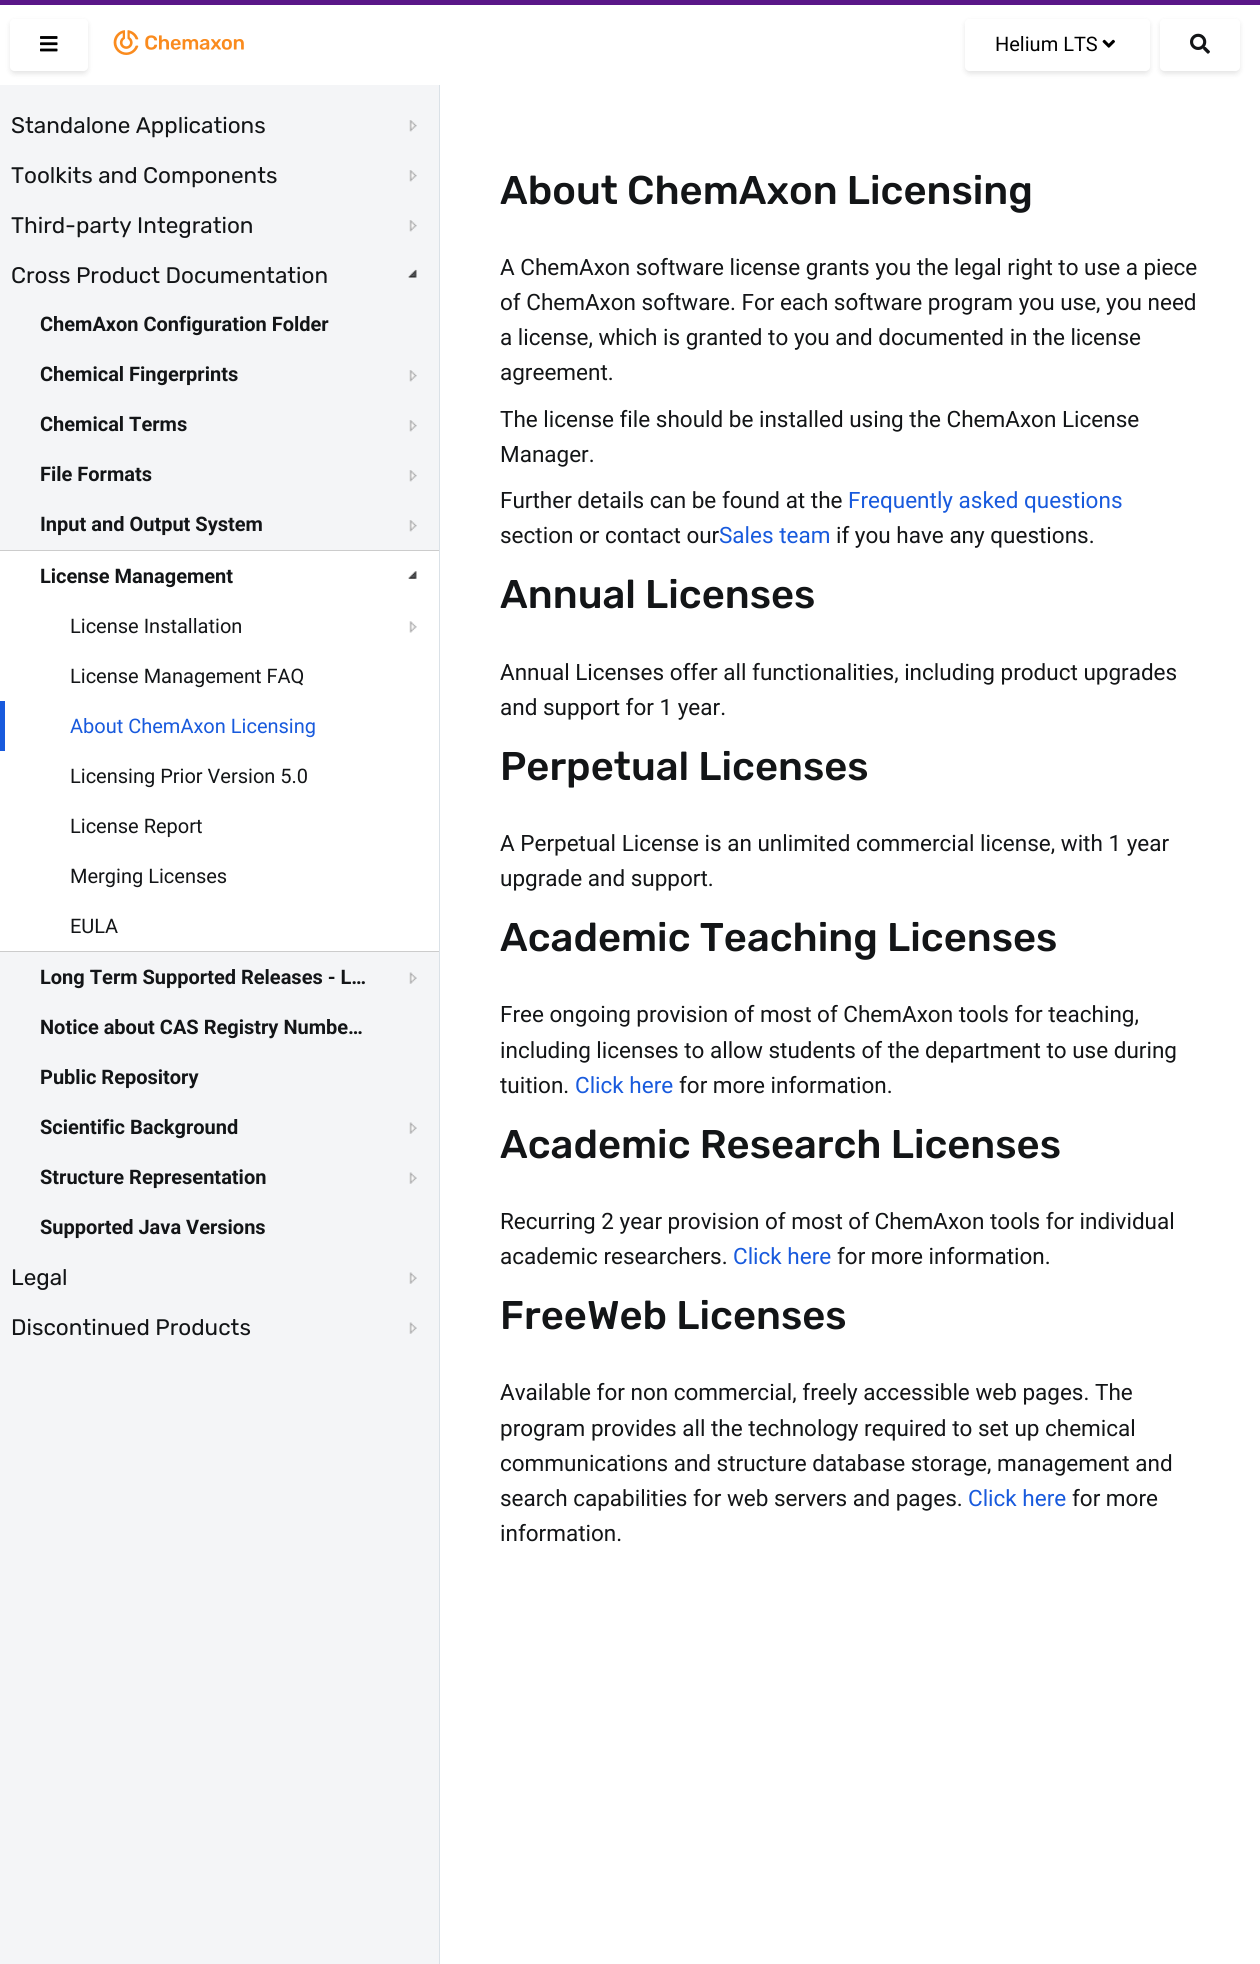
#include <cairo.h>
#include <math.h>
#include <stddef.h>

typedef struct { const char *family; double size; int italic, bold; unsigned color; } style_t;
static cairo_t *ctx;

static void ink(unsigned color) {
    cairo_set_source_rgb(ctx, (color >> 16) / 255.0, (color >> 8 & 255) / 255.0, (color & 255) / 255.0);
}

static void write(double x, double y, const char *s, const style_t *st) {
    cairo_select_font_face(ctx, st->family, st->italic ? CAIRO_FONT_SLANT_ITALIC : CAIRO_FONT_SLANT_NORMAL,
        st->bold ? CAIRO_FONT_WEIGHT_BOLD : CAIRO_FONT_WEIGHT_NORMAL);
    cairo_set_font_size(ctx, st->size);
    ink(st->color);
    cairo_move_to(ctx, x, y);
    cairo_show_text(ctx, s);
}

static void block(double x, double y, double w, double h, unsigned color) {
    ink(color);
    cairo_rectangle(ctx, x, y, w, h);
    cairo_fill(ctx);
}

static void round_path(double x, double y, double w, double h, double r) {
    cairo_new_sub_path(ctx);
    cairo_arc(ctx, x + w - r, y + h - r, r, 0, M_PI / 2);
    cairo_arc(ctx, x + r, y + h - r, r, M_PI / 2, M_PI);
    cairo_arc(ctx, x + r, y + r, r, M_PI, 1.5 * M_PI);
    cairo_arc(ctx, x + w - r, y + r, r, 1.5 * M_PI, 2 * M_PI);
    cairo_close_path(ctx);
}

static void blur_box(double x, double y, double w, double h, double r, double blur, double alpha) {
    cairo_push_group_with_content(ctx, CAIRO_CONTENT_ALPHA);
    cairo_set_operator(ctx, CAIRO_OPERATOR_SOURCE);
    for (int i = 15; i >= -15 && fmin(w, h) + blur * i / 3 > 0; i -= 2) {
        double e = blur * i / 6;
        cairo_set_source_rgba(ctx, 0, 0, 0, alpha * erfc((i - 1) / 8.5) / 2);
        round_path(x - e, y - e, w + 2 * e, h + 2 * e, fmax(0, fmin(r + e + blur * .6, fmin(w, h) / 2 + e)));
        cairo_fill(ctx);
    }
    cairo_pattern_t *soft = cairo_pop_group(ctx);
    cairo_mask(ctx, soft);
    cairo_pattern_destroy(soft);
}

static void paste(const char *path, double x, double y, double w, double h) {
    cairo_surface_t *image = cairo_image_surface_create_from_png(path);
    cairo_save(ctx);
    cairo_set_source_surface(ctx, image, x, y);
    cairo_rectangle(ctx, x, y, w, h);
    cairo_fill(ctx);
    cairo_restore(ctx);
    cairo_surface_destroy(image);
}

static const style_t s1 = {"Roboto", 20, 0, 0, 0x000000};
static const style_t s2 = {"Rubik", 22.5, 0, 0, 0x131517};
static const style_t s3 = {"Roboto", 20, 0, 1, 0x131517};
static const style_t s4 = {"Roboto", 20, 0, 0, 0x131517};
static const style_t s5 = {"Roboto", 20, 0, 0, 0x185add};
static const style_t s6 = {"Rubik Medium", 40, 0, 0, 0x131517};
static const style_t s7 = {"Roboto", 22.5, 0, 0, 0x131517};
static const style_t s8 = {"Roboto", 22.5, 0, 0, 0x185add};

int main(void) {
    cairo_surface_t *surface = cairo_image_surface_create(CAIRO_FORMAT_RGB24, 1260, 1964);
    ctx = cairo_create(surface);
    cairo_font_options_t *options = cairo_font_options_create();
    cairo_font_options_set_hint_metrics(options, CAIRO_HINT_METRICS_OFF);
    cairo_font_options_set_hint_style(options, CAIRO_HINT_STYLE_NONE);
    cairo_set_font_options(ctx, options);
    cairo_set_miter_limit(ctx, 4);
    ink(0xffffff);
    cairo_paint(ctx);
    block(0, 0, 1260, 5, 0x5a1788);
    block(439, 80, 1, 1884, 0xdae1e7);
    block(439, 80, 1, 5, 0xffffff);
    cairo_save(ctx);
    cairo_set_fill_rule(ctx, CAIRO_FILL_RULE_EVEN_ODD);
    cairo_new_path(ctx);
    cairo_move_to(ctx, 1, 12);
    cairo_line_to(ctx, 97, 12);
    cairo_line_to(ctx, 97, 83);
    cairo_line_to(ctx, 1, 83);
    cairo_close_path(ctx);
    cairo_move_to(ctx, 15, 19);
    cairo_line_to(ctx, 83, 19);
    cairo_curve_to(ctx, 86, 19, 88, 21, 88, 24);
    cairo_line_to(ctx, 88, 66);
    cairo_curve_to(ctx, 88, 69, 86, 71, 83, 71);
    cairo_line_to(ctx, 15, 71);
    cairo_curve_to(ctx, 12, 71, 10, 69, 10, 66);
    cairo_line_to(ctx, 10, 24);
    cairo_curve_to(ctx, 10, 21, 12, 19, 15, 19);
    cairo_close_path(ctx);
    cairo_clip(ctx);
    ink(0x000000);
    blur_box(10, 21, 78, 53, 5, 2.5, 0.1);
    cairo_restore(ctx);
    paste("pic1.png", 40, 36, 18, 16);
    paste("pic2.png", 113, 30, 131, 25);
    cairo_save(ctx);
    cairo_set_fill_rule(ctx, CAIRO_FILL_RULE_EVEN_ODD);
    cairo_new_path(ctx);
    cairo_move_to(ctx, 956, 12);
    cairo_line_to(ctx, 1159, 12);
    cairo_line_to(ctx, 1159, 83);
    cairo_line_to(ctx, 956, 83);
    cairo_close_path(ctx);
    cairo_move_to(ctx, 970, 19);
    cairo_line_to(ctx, 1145, 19);
    cairo_curve_to(ctx, 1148, 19, 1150, 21, 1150, 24);
    cairo_line_to(ctx, 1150, 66);
    cairo_curve_to(ctx, 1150, 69, 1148, 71, 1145, 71);
    cairo_line_to(ctx, 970, 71);
    cairo_curve_to(ctx, 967, 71, 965, 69, 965, 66);
    cairo_line_to(ctx, 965, 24);
    cairo_curve_to(ctx, 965, 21, 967, 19, 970, 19);
    cairo_close_path(ctx);
    cairo_clip(ctx);
    ink(0x000000);
    blur_box(965, 21, 185, 53, 5, 2.5, 0.1);
    cairo_restore(ctx);
    write(995, 51, "Helium LTS", &s1);
    paste("pic3.png", 1102, 39, 13, 9);
    cairo_save(ctx);
    cairo_set_fill_rule(ctx, CAIRO_FILL_RULE_EVEN_ODD);
    cairo_new_path(ctx);
    cairo_move_to(ctx, 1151, 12);
    cairo_line_to(ctx, 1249, 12);
    cairo_line_to(ctx, 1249, 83);
    cairo_line_to(ctx, 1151, 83);
    cairo_close_path(ctx);
    cairo_move_to(ctx, 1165, 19);
    cairo_line_to(ctx, 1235, 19);
    cairo_curve_to(ctx, 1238, 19, 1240, 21, 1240, 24);
    cairo_line_to(ctx, 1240, 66);
    cairo_curve_to(ctx, 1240, 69, 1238, 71, 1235, 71);
    cairo_line_to(ctx, 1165, 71);
    cairo_curve_to(ctx, 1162, 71, 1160, 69, 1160, 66);
    cairo_line_to(ctx, 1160, 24);
    cairo_curve_to(ctx, 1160, 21, 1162, 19, 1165, 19);
    cairo_close_path(ctx);
    cairo_clip(ctx);
    ink(0x000000);
    blur_box(1160, 21, 80, 53, 5, 2.5, 0.1);
    cairo_restore(ctx);
    paste("pic4.png", 1190, 33, 20, 21);
    block(0, 85, 439, 1879, 0xf4f5f7);
    write(11, 133, "Standalone Applications", &s2);
    paste("pic5.png", 409, 120, 8, 12);
    write(11, 183, "Toolkits and Components", &s2);
    paste("pic5.png", 409, 170, 8, 12);
    write(11, 233, "Third-party Integration", &s2);
    paste("pic5.png", 409, 220, 8, 12);
    write(11, 283, "Cross Product Documentation", &s2);
    paste("pic6.png", 408, 269, 9, 9);
    write(40, 331, "ChemAxon Configuration Folder", &s3);
    write(40, 381, "Chemical Fingerprints", &s3);
    paste("pic5.png", 409, 370, 8, 12);
    write(40, 431, "Chemical Terms", &s3);
    paste("pic5.png", 409, 420, 8, 12);
    write(40, 481, "File Formats", &s3);
    paste("pic5.png", 409, 470, 8, 12);
    write(40, 531, "Input and Output System", &s3);
    paste("pic5.png", 409, 520, 8, 12);
    block(0, 551, 439, 400, 0xffffff);
    block(0, 550, 439, 1, 0xcccccc);
    block(0, 951, 439, 1, 0xcccccc);
    write(40, 583, "License Management", &s3);
    paste("pic7.png", 408, 571, 9, 8);
    write(70, 633, "License Installation", &s4);
    paste("pic8.png", 409, 621, 8, 12);
    write(70, 683, "License Management FAQ", &s4);
    block(0, 701, 5, 50, 0x185add);
    write(70, 733, "About ChemAxon Licensing", &s5);
    write(70, 783, "Licensing Prior Version 5.0", &s4);
    write(70, 833, "License Report", &s4);
    write(70, 883, "Merging Licenses", &s4);
    write(70, 933, "EULA", &s4);
    write(40, 984, "Long Term Supported Releases - L…", &s3);
    paste("pic9.png", 409, 972, 8, 12);
    write(40, 1034, "Notice about CAS Registry Numbe…", &s3);
    write(40, 1084, "Public Repository", &s3);
    write(40, 1134, "Scientific Background", &s3);
    paste("pic9.png", 409, 1122, 8, 12);
    write(40, 1184, "Structure Representation", &s3);
    paste("pic9.png", 409, 1172, 8, 12);
    write(40, 1234, "Supported Java Versions", &s3);
    write(11, 1285, "Legal", &s2);
    paste("pic9.png", 409, 1272, 8, 12);
    write(11, 1335, "Discontinued Products", &s2);
    paste("pic9.png", 409, 1322, 8, 12);
    write(500, 204, "About ChemAxon Licensing", &s6);
    write(500, 275, "A ChemAxon software license grants you the legal right to use a piece", &s7);
    write(500, 310, "of ChemAxon software. For each software program you use, you need", &s7);
    write(500, 345, "a license, which is granted to you and documented in the license", &s7);
    write(500, 380, "agreement.", &s7);
    write(500, 427, "The license file should be installed using the ChemAxon License", &s7);
    write(500, 462, "Manager.", &s7);
    write(500, 508, "Further details can be found at the", &s7);
    write(848, 508, "Frequently asked questions", &s8);
    write(500, 543, "section or contact our", &s7);
    write(719, 543, "Sales team", &s8);
    write(836, 543, "if you have any questions.", &s7);
    write(500, 608, "Annual Licenses", &s6);
    write(500, 680, "Annual Licenses offer all functionalities, including product upgrades", &s7);
    write(500, 715, "and support for 1 year.", &s7);
    write(500, 780, "Perpetual Licenses", &s6);
    write(500, 851, "A Perpetual License is an unlimited commercial license, with 1 year", &s7);
    write(500, 886, "upgrade and support.", &s7);
    write(500, 951, "Academic Teaching Licenses", &s6);
    write(500, 1022, "Free ongoing provision of most of ChemAxon tools for teaching,", &s7);
    write(500, 1058, "including licenses to allow students of the department to use during", &s7);
    write(500, 1093, "tuition.", &s7);
    write(575, 1093, "Click here", &s8);
    write(679, 1093, "for more information.", &s7);
    write(500, 1158, "Academic Research Licenses", &s6);
    write(500, 1229, "Recurring 2 year provision of most of ChemAxon tools for individual", &s7);
    write(500, 1264, "academic researchers.", &s7);
    write(733, 1264, "Click here", &s8);
    write(837, 1264, "for more information.", &s7);
    write(500, 1329, "FreeWeb Licenses", &s6);
    write(500, 1400, "Available for non commercial, freely accessible web pages. The", &s7);
    write(500, 1436, "program provides all the technology required to set up chemical", &s7);
    write(500, 1471, "communications and structure database storage, management and", &s7);
    write(500, 1506, "search capabilities for web servers and pages.", &s7);
    write(968, 1506, "Click here", &s8);
    write(1072, 1506, "for more", &s7);
    write(500, 1541, "information.", &s7);
    cairo_surface_write_to_png(surface, "screenshot.png");
    cairo_font_options_destroy(options);
    cairo_destroy(ctx);
    cairo_surface_destroy(surface);
    return 0;
}
